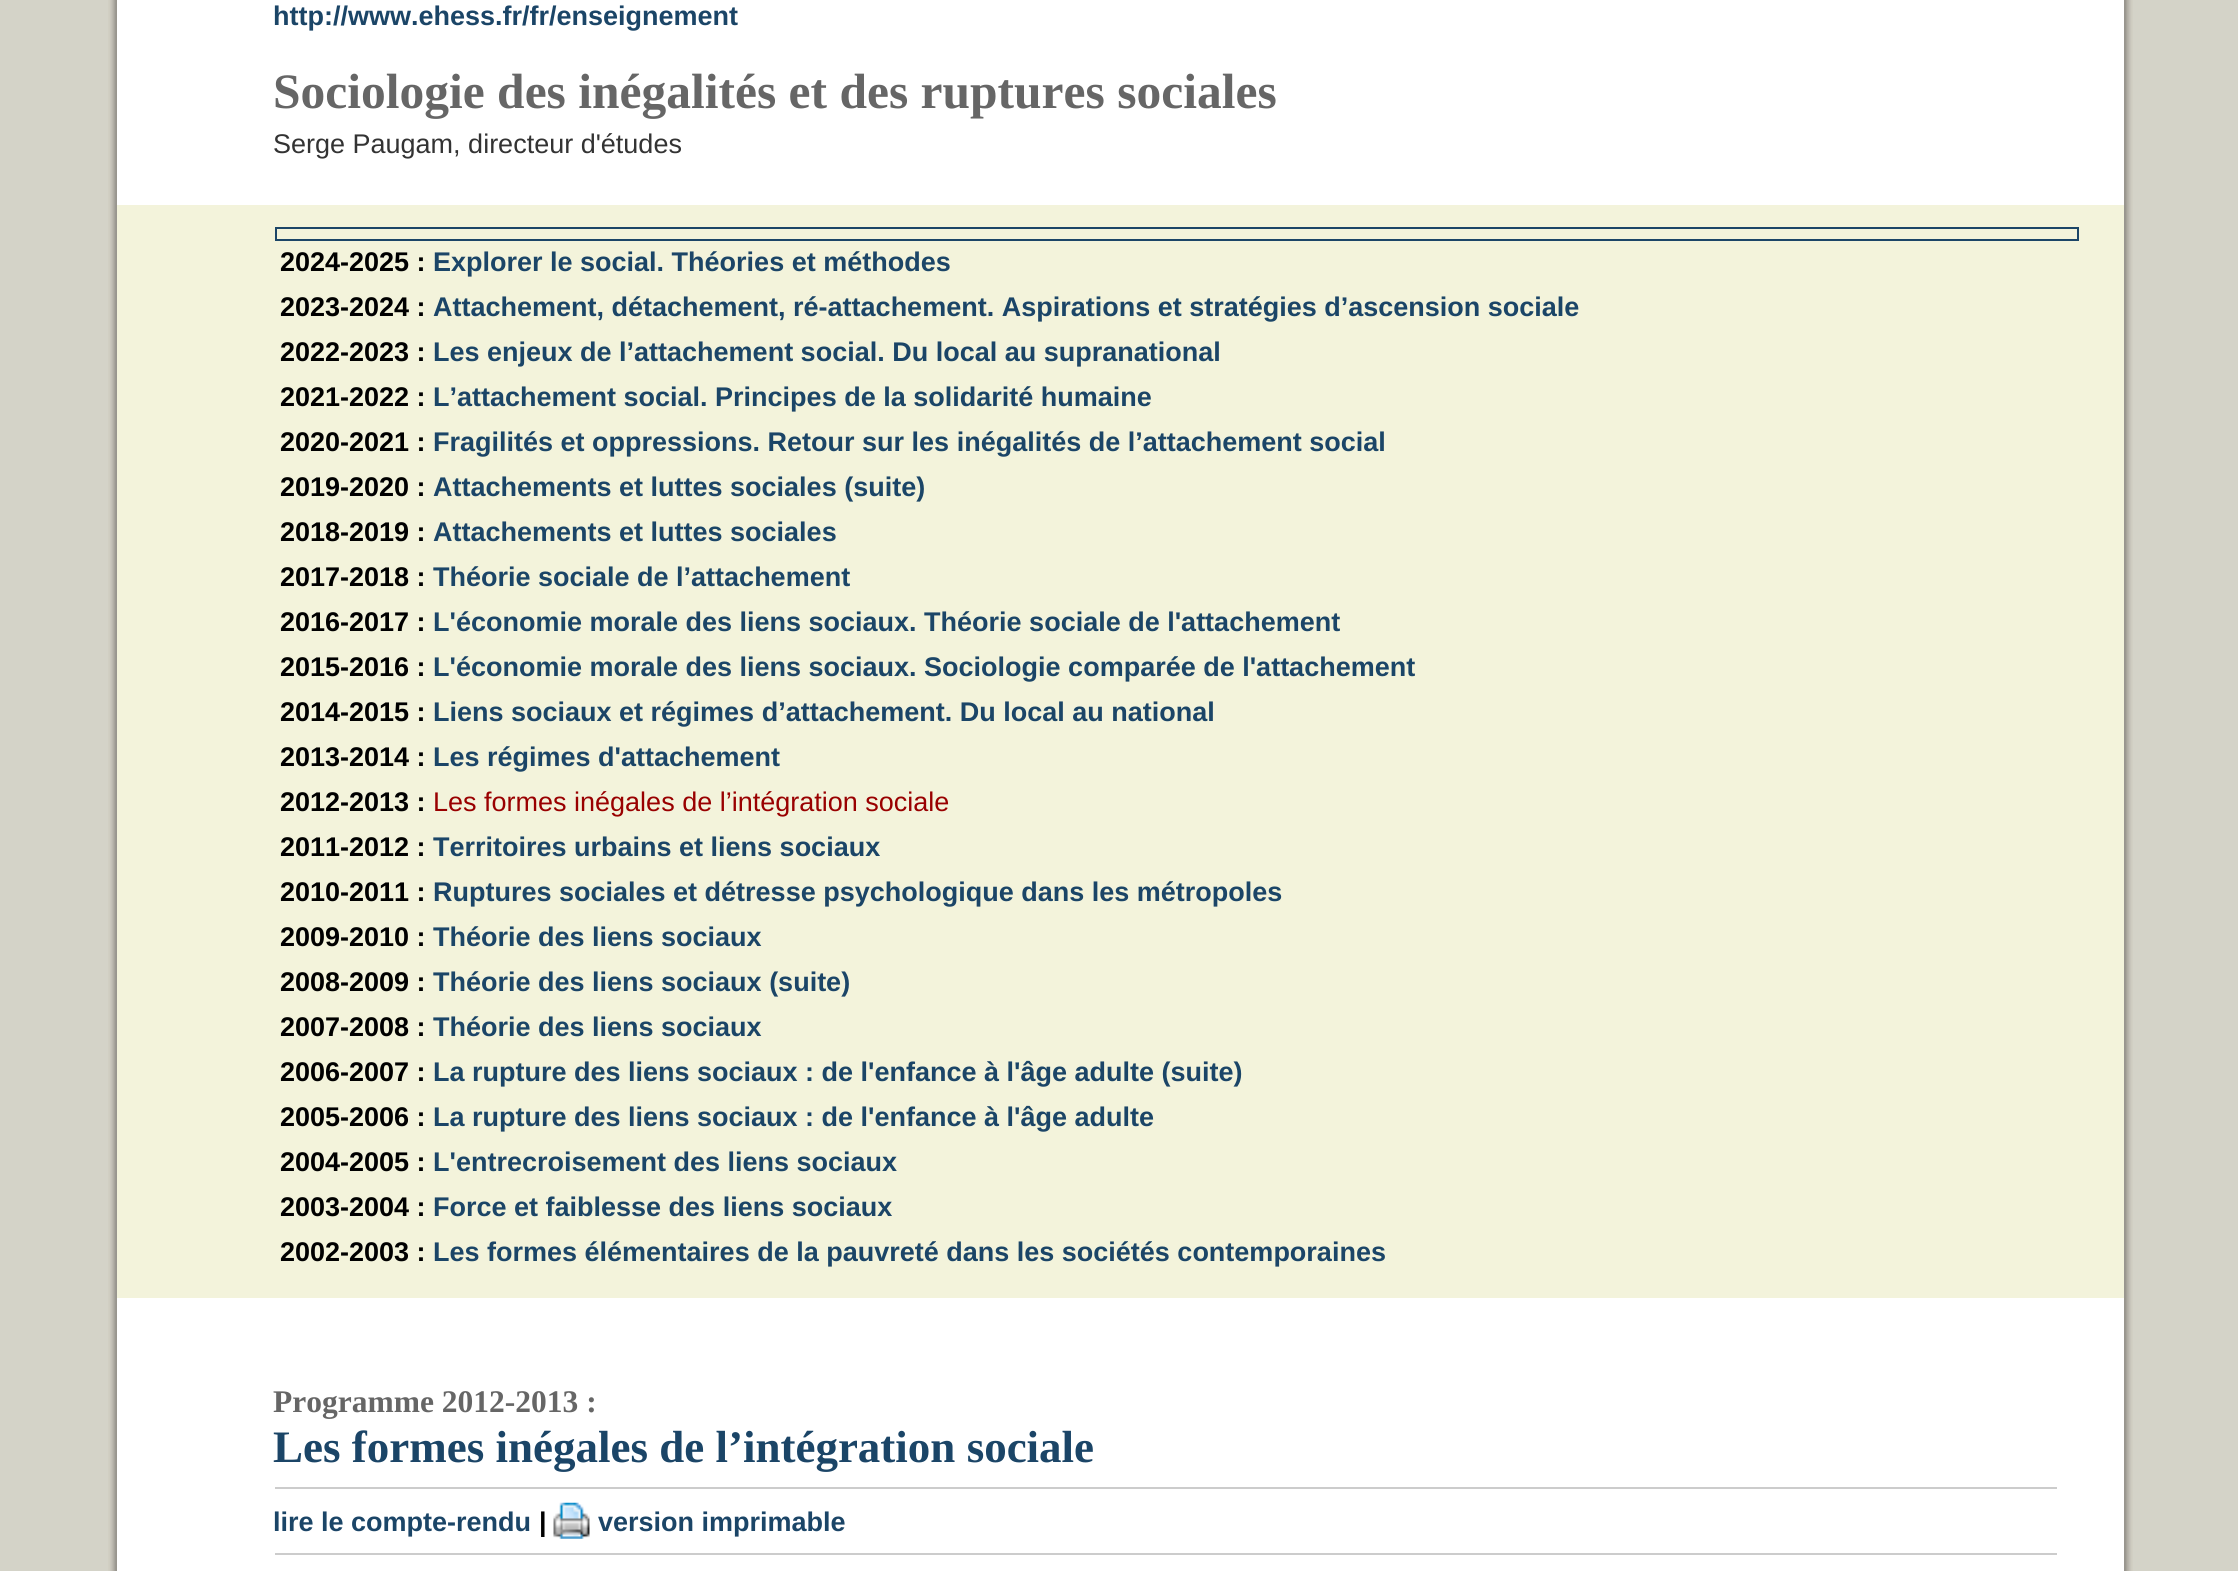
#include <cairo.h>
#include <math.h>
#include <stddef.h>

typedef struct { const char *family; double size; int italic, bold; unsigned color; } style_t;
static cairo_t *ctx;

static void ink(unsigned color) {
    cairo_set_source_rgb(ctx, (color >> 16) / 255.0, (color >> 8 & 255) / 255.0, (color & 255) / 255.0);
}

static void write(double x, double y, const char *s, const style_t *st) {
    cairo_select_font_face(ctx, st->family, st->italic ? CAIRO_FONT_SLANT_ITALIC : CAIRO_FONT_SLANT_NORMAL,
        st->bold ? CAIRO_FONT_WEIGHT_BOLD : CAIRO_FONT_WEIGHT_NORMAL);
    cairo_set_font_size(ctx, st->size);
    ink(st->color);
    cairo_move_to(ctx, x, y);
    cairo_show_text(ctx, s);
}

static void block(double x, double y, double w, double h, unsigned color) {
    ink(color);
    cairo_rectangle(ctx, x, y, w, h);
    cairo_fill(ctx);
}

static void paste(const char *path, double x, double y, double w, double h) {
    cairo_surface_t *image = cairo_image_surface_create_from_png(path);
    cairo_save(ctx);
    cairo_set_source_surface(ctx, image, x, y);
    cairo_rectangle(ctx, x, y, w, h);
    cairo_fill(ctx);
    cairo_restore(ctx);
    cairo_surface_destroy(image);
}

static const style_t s1 = {"Liberation Sans", 27, 0, 1, 0x1b4567};
static const style_t s2 = {"Liberation Serif", 49.5, 0, 1, 0x666666};
static const style_t s3 = {"Liberation Sans", 27, 0, 0, 0x333333};
static const style_t s4 = {"Liberation Sans", 27, 0, 1, 0x000000};
static const style_t s5 = {"Liberation Sans", 27, 0, 0, 0x990000};
static const style_t s6 = {"Liberation Serif", 31.5, 0, 1, 0x666666};
static const style_t s7 = {"Liberation Serif", 45, 0, 1, 0x1b4567};

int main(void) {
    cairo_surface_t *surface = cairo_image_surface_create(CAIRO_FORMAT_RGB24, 2238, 1571);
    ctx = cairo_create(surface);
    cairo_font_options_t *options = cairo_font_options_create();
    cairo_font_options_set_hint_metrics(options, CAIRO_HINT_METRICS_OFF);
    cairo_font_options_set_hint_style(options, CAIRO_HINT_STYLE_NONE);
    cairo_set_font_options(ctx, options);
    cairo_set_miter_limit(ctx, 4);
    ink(0xd4d3c8);
    cairo_paint(ctx);
    paste("pic1.png", 108, 0, 9, 1571);
    block(117, 0, 2007, 1571, 0xffffff);
    write(273, 25, "http://www.ehess.fr/fr/enseignement", &s1);
    write(273, 108, "Sociologie des inégalités et des ruptures sociales", &s2);
    write(273, 153, "Serge Paugam, directeur d'études", &s3);
    block(117, 205, 2007, 1093, 0xf3f3db);
    cairo_rectangle(ctx, 276, 228, 1802, 12);
    ink(0x1b4567);
    cairo_stroke(ctx);
    write(280, 271, "2024-2025 :", &s4);
    write(433, 271, "Explorer le social. Théories et méthodes", &s1);
    write(280, 316, "2023-2024 :", &s4);
    write(433, 316, "Attachement, détachement, ré-attachement. Aspirations et stratégies d’ascension sociale", &s1);
    write(280, 361, "2022-2023 :", &s4);
    write(433, 361, "Les enjeux de l’attachement social. Du local au supranational", &s1);
    write(280, 406, "2021-2022 :", &s4);
    write(433, 406, "L’attachement social. Principes de la solidarité humaine", &s1);
    write(280, 451, "2020-2021 :", &s4);
    write(433, 451, "Fragilités et oppressions. Retour sur les inégalités de l’attachement social", &s1);
    write(280, 496, "2019-2020 :", &s4);
    write(433, 496, "Attachements et luttes sociales (suite)", &s1);
    write(280, 541, "2018-2019 :", &s4);
    write(433, 541, "Attachements et luttes sociales", &s1);
    write(280, 586, "2017-2018 :", &s4);
    write(433, 586, "Théorie sociale de l’attachement", &s1);
    write(280, 631, "2016-2017 :", &s4);
    write(433, 631, "L'économie morale des liens sociaux. Théorie sociale de l'attachement", &s1);
    write(280, 676, "2015-2016 :", &s4);
    write(433, 676, "L'économie morale des liens sociaux. Sociologie comparée de l'attachement", &s1);
    write(280, 721, "2014-2015 :", &s4);
    write(433, 721, "Liens sociaux et régimes d’attachement. Du local au national", &s1);
    write(280, 766, "2013-2014 :", &s4);
    write(433, 766, "Les régimes d'attachement", &s1);
    write(280, 811, "2012-2013 :", &s4);
    write(433, 811, "Les formes inégales de l’intégration sociale", &s5);
    write(280, 856, "2011-2012 :", &s4);
    write(433, 856, "Territoires urbains et liens sociaux", &s1);
    write(280, 901, "2010-2011 :", &s4);
    write(433, 901, "Ruptures sociales et détresse psychologique dans les métropoles", &s1);
    write(280, 946, "2009-2010 :", &s4);
    write(433, 946, "Théorie des liens sociaux", &s1);
    write(280, 991, "2008-2009 :", &s4);
    write(433, 991, "Théorie des liens sociaux (suite)", &s1);
    write(280, 1036, "2007-2008 :", &s4);
    write(433, 1036, "Théorie des liens sociaux", &s1);
    write(280, 1081, "2006-2007 :", &s4);
    write(433, 1081, "La rupture des liens sociaux : de l'enfance à l'âge adulte (suite)", &s1);
    write(280, 1126, "2005-2006 :", &s4);
    write(433, 1126, "La rupture des liens sociaux : de l'enfance à l'âge adulte", &s1);
    write(280, 1171, "2004-2005 :", &s4);
    write(433, 1171, "L'entrecroisement des liens sociaux", &s1);
    write(280, 1216, "2003-2004 :", &s4);
    write(433, 1216, "Force et faiblesse des liens sociaux", &s1);
    write(280, 1261, "2002-2003 :", &s4);
    write(433, 1261, "Les formes élémentaires de la pauvreté dans les sociétés contemporaines", &s1);
    write(273, 1412, "Programme 2012-2013 :", &s6);
    write(273, 1462, "Les formes inégales de l’intégration sociale", &s7);
    block(275, 1487, 1782, 2, 0xcccccc);
    write(273, 1531, "lire le compte-rendu", &s1);
    write(539, 1531, "|", &s4);
    paste("pic2.png", 553, 1502, 37, 37);
    write(598, 1531, "version imprimable", &s1);
    block(275, 1553, 1782, 2, 0xcccccc);
    paste("pic3.png", 2124, 0, 9, 1571);
    cairo_surface_write_to_png(surface, "screenshot.png");
    cairo_font_options_destroy(options);
    cairo_destroy(ctx);
    cairo_surface_destroy(surface);
    return 0;
}
